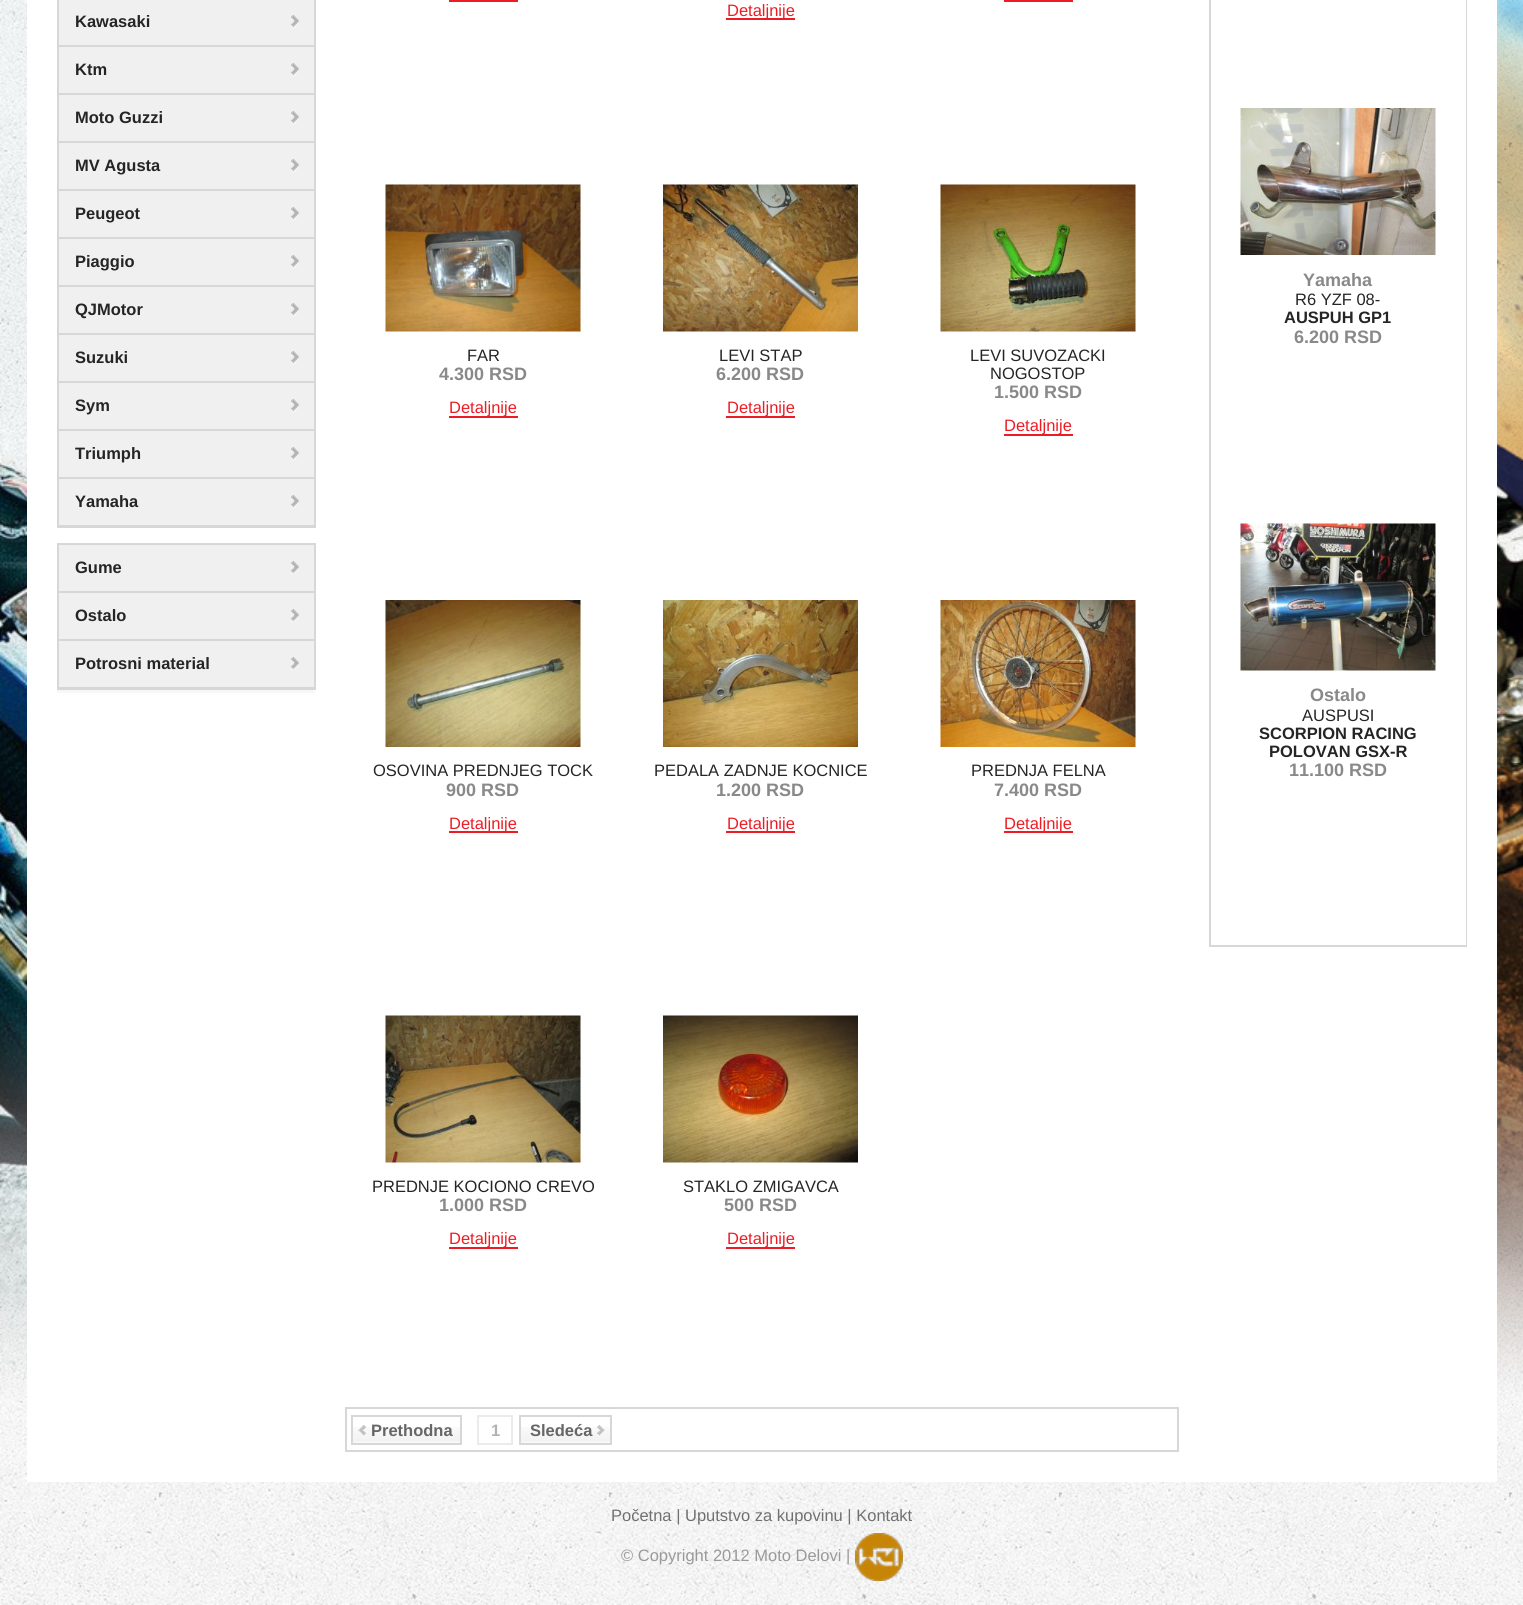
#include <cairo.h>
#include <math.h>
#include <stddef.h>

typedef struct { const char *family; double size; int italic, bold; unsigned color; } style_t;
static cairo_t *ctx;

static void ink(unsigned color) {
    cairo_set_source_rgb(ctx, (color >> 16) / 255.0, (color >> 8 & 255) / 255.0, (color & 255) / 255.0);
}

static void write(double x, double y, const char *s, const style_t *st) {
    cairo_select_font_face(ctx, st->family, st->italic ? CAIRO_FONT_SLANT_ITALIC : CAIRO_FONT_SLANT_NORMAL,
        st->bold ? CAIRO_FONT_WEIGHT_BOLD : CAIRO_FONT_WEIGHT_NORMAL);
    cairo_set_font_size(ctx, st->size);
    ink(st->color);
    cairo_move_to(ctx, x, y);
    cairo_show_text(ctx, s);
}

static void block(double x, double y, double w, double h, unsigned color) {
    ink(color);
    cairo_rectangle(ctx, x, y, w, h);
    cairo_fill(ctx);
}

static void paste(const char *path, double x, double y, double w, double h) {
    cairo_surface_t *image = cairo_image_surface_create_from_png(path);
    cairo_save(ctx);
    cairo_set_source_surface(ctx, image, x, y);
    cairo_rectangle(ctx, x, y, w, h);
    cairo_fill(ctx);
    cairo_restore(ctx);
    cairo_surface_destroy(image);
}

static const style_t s1 = {"Liberation Sans", 16.5, 0, 1, 0x252525};
static const style_t s2 = {"Liberation Sans", 16.5, 0, 0, 0xed1c24};
static const style_t s3 = {"Liberation Sans", 16.5, 0, 0, 0x252525};
static const style_t s4 = {"Liberation Sans", 18, 0, 1, 0x898989};
static const style_t s5 = {"Liberation Sans", 16.5, 0, 1, 0x666666};
static const style_t s6 = {"Liberation Sans", 16.5, 0, 1, 0xb2b2b2};
static const style_t s7 = {"Liberation Sans", 16.5, 0, 0, 0x707070};
static const style_t s8 = {"Liberation Sans", 16.5, 0, 0, 0x999999};

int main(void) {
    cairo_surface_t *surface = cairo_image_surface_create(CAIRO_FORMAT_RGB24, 1523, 1605);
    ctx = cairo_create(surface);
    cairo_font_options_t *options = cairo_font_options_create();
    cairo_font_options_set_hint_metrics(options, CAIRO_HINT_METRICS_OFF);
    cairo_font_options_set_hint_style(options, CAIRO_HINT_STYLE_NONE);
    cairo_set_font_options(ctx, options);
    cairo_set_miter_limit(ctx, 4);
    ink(0xffffff);
    cairo_paint(ctx);
    paste("pic1.png", 0, 0, 1523, 1605);
    block(27, 0, 1470, 1482, 0xffffff);
    block(57, 690, 258, 3, 0xf7f7f7);
    block(314, 0, 2, 528, 0xd7d7d7);
    block(57, 525, 258, 3, 0xd7d7d7);
    block(57, 0, 2, 528, 0xd7d7d7);
    block(59, 0, 255, 45, 0xf0f0f0);
    paste("pic2.png", 291, 15, 8, 14);
    write(75, 27, "Kawasaki", &s1);
    block(59, 45, 255, 2, 0xd7d7d7);
    block(59, 47, 255, 46, 0xf0f0f0);
    paste("pic2.png", 291, 63, 8, 14);
    write(75, 75, "Ktm", &s1);
    block(59, 93, 255, 2, 0xd7d7d7);
    block(59, 95, 255, 46, 0xf0f0f0);
    paste("pic2.png", 291, 111, 8, 14);
    write(75, 123, "Moto Guzzi", &s1);
    block(59, 141, 255, 2, 0xd7d7d7);
    block(59, 143, 255, 46, 0xf0f0f0);
    paste("pic2.png", 291, 159, 8, 14);
    write(75, 171, "MV Agusta", &s1);
    block(59, 189, 255, 2, 0xd7d7d7);
    block(59, 191, 255, 46, 0xf0f0f0);
    paste("pic2.png", 291, 207, 8, 14);
    write(75, 219, "Peugeot", &s1);
    block(59, 237, 255, 2, 0xd7d7d7);
    block(59, 239, 255, 46, 0xf0f0f0);
    paste("pic2.png", 291, 255, 8, 14);
    write(75, 267, "Piaggio", &s1);
    block(59, 285, 255, 2, 0xd7d7d7);
    block(59, 287, 255, 46, 0xf0f0f0);
    paste("pic2.png", 291, 303, 8, 14);
    write(75, 315, "QJMotor", &s1);
    block(59, 333, 255, 2, 0xd7d7d7);
    block(59, 335, 255, 46, 0xf0f0f0);
    paste("pic2.png", 291, 351, 8, 14);
    write(75, 363, "Suzuki", &s1);
    block(59, 381, 255, 2, 0xd7d7d7);
    block(59, 383, 255, 46, 0xf0f0f0);
    paste("pic2.png", 291, 399, 8, 14);
    write(75, 411, "Sym", &s1);
    block(59, 429, 255, 2, 0xd7d7d7);
    block(59, 431, 255, 46, 0xf0f0f0);
    paste("pic2.png", 291, 447, 8, 14);
    write(75, 459, "Triumph", &s1);
    block(59, 477, 255, 2, 0xd7d7d7);
    block(59, 479, 255, 46, 0xf0f0f0);
    paste("pic2.png", 291, 495, 8, 14);
    write(75, 507, "Yamaha", &s1);
    block(314, 543, 2, 147, 0xd7d7d7);
    block(57, 687, 258, 3, 0xd7d7d7);
    block(57, 543, 2, 147, 0xd7d7d7);
    block(59, 543, 255, 2, 0xd7d7d7);
    block(59, 545, 255, 46, 0xf0f0f0);
    paste("pic2.png", 291, 561, 8, 14);
    write(75, 573, "Gume", &s1);
    block(59, 591, 255, 2, 0xd7d7d7);
    block(59, 593, 255, 46, 0xf0f0f0);
    paste("pic2.png", 291, 609, 8, 14);
    write(75, 621, "Ostalo", &s1);
    block(59, 639, 255, 2, 0xd7d7d7);
    block(59, 641, 255, 46, 0xf0f0f0);
    paste("pic2.png", 291, 657, 8, 14);
    write(75, 669, "Potrosni material", &s1);
    block(449, 0, 69, 2, 0xed1c24);
    block(1004, 0, 69, 2, 0xed1c24);
    block(726, 18, 69, 2, 0xed1c24);
    write(727, 16, "Detaljnije", &s2);
    paste("pic3.png", 385, 184, 196, 148);
    write(467, 361, "FAR", &s3);
    write(439, 380, "4.300 RSD", &s4);
    block(449, 416, 69, 2, 0xed1c24);
    write(449, 413, "Detaljnije", &s2);
    paste("pic4.png", 663, 184, 195, 148);
    write(719, 361, "LEVI STAP", &s3);
    write(716, 380, "6.200 RSD", &s4);
    block(726, 416, 69, 2, 0xed1c24);
    write(727, 413, "Detaljnije", &s2);
    paste("pic5.png", 940, 184, 196, 148);
    write(970, 361, "LEVI SUVOZACKI", &s3);
    write(990, 379, "NOGOSTOP", &s3);
    write(994, 398, "1.500 RSD", &s4);
    block(1004, 434, 69, 2, 0xed1c24);
    write(1004, 431, "Detaljnije", &s2);
    paste("pic6.png", 385, 600, 196, 147);
    write(373, 776, "OSOVINA PREDNJEG TOCK", &s3);
    write(446, 796, "900 RSD", &s4);
    block(449, 831, 69, 2, 0xed1c24);
    write(449, 829, "Detaljnije", &s2);
    paste("pic7.png", 663, 600, 195, 147);
    write(654, 776, "PEDALA ZADNJE KOCNICE", &s3);
    write(716, 796, "1.200 RSD", &s4);
    block(726, 831, 69, 2, 0xed1c24);
    write(727, 829, "Detaljnije", &s2);
    paste("pic8.png", 940, 600, 196, 147);
    write(971, 776, "PREDNJA FELNA", &s3);
    write(994, 796, "7.400 RSD", &s4);
    block(1004, 831, 69, 2, 0xed1c24);
    write(1004, 829, "Detaljnije", &s2);
    paste("pic9.png", 385, 1015, 196, 148);
    write(372, 1192, "PREDNJE KOCIONO CREVO", &s3);
    write(439, 1211, "1.000 RSD", &s4);
    block(449, 1247, 69, 2, 0xed1c24);
    write(449, 1244, "Detaljnije", &s2);
    paste("pic10.png", 663, 1015, 195, 148);
    write(683, 1192, "STAKLO ZMIGAVCA", &s3);
    write(724, 1211, "500 RSD", &s4);
    block(726, 1247, 69, 2, 0xed1c24);
    write(727, 1244, "Detaljnije", &s2);
    cairo_rectangle(ctx, 346, 1408, 832, 43);
    ink(0xd7d7d7);
    cairo_stroke(ctx);
    paste("pic11.png", 353, 1427, 107, 16);
    cairo_rectangle(ctx, 352, 1416, 109, 28);
    cairo_stroke(ctx);
    paste("pic12.png", 358, 1425, 8, 12);
    write(371, 1436, "Prethodna", &s5);
    cairo_rectangle(ctx, 478, 1416, 34, 28);
    ink(0xebebeb);
    cairo_stroke(ctx);
    write(491, 1436, "1", &s6);
    paste("pic13.png", 521, 1427, 89, 16);
    cairo_rectangle(ctx, 520, 1416, 91, 28);
    ink(0xd7d7d7);
    cairo_stroke(ctx);
    write(530, 1436, "Sledeća", &s5);
    paste("pic14.png", 597, 1425, 8, 12);
    cairo_rectangle(ctx, 1210, -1, 256, 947);
    ink(0xd7d7d7);
    cairo_stroke(ctx);
    block(1465, 0, 1, 945, 0xffffff);
    paste("pic15.png", 1240, 108, 196, 147);
    write(1303, 286, "Yamaha", &s4);
    write(1295, 305, "R6 YZF 08-", &s3);
    write(1284, 323, "AUSPUH GP1", &s1);
    write(1294, 343, "6.200 RSD", &s4);
    paste("pic16.png", 1240, 523, 196, 148);
    write(1310, 701, "Ostalo", &s4);
    write(1302, 721, "AUSPUSI", &s3);
    write(1259, 739, "SCORPION RACING", &s1);
    write(1269, 757, "POLOVAN GSX-R", &s1);
    write(1289, 776, "11.100 RSD", &s4);
    write(611, 1521, "Početna | Uputstvo za kupovinu | Kontakt", &s7);
    write(621, 1561, "© Copyright 2012 Moto Delovi |", &s8);
    paste("pic17.png", 855, 1533, 48, 48);
    cairo_surface_write_to_png(surface, "screenshot.png");
    cairo_font_options_destroy(options);
    cairo_destroy(ctx);
    cairo_surface_destroy(surface);
    return 0;
}
